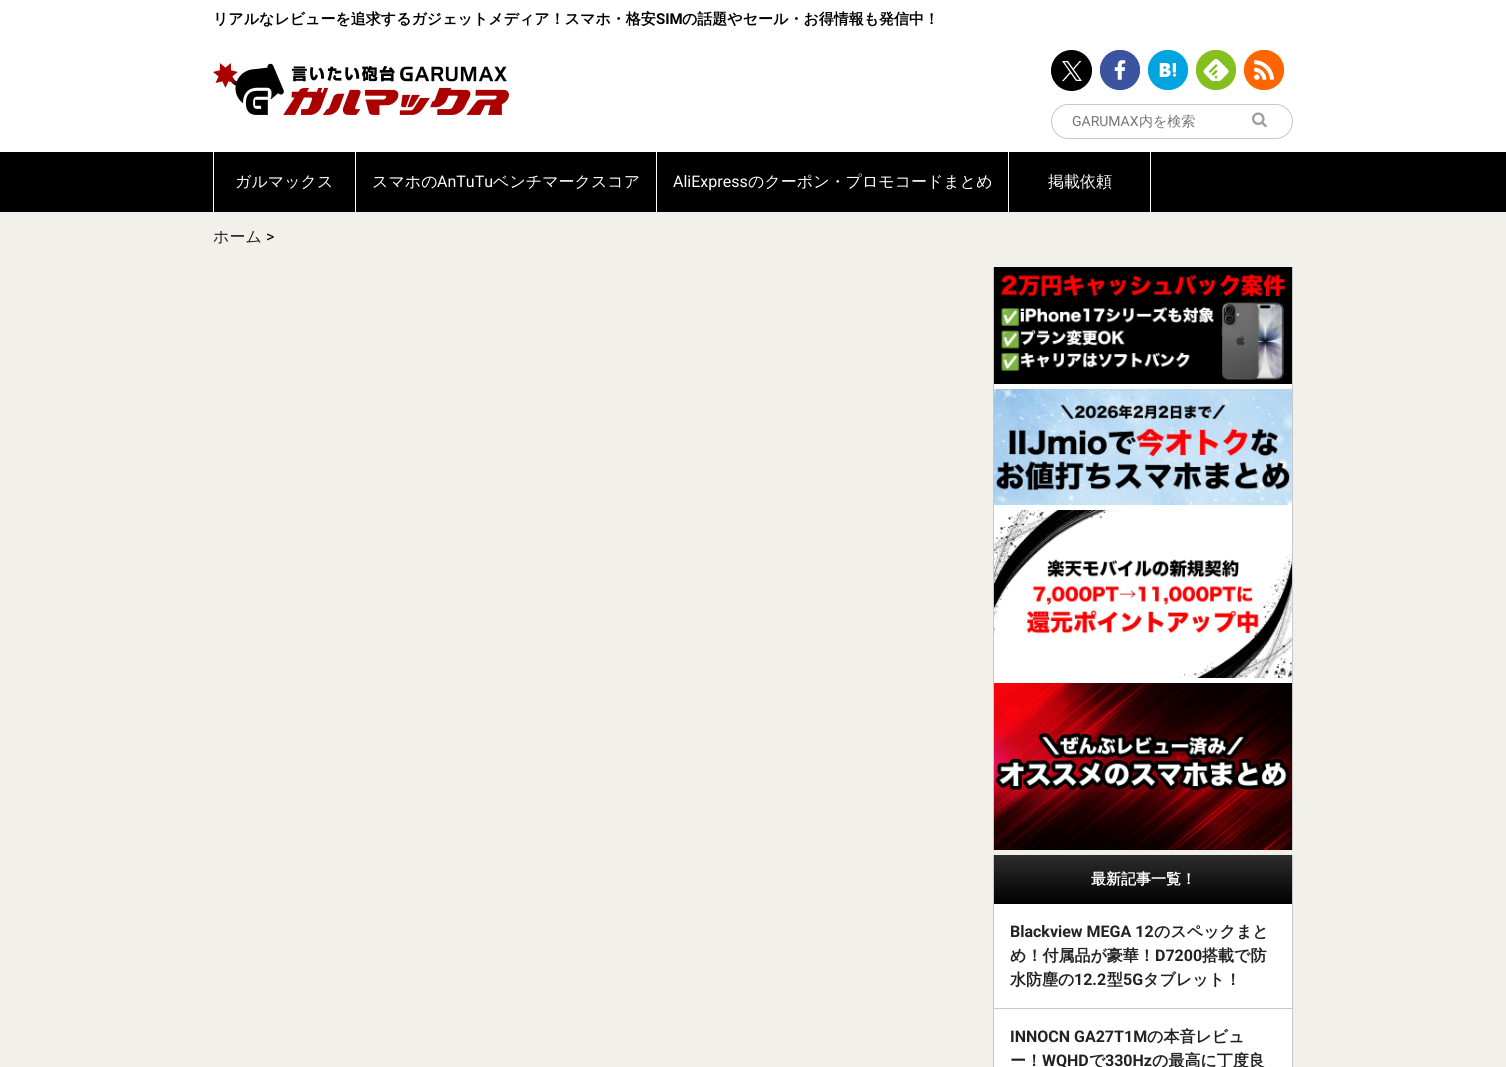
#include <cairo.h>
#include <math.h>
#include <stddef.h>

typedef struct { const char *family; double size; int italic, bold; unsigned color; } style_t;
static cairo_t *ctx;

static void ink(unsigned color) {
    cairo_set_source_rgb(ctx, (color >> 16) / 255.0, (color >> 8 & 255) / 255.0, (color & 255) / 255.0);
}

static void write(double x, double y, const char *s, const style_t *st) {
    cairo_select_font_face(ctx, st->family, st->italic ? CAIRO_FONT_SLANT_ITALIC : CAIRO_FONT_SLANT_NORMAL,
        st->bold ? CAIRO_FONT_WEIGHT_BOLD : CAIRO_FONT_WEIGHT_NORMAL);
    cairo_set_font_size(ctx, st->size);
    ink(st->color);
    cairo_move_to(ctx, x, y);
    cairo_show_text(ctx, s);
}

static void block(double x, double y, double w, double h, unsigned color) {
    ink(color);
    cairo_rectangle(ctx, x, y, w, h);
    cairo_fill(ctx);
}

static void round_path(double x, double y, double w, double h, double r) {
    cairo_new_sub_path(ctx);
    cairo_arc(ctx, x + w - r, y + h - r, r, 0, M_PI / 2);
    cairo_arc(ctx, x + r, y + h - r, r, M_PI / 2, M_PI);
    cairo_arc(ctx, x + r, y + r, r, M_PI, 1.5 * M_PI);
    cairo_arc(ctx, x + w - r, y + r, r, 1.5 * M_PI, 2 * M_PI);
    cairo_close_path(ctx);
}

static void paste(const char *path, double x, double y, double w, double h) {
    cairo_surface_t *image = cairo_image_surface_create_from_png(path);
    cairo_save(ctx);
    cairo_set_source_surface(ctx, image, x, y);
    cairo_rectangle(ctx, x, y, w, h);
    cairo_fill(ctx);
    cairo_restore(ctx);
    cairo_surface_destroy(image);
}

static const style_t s1 = {"WenQuanYi Zen Hei", 15, 0, 1, 0x000000};
static const style_t s2 = {"Roboto", 15, 0, 1, 0x000000};
static const style_t s3 = {"Roboto", 14, 0, 0, 0x757575};
static const style_t s4 = {"WenQuanYi Zen Hei Medium", 14, 0, 0, 0x757575};
static const style_t s5 = {"WenQuanYi Zen Hei Medium", 16, 0, 0, 0xffffff};
static const style_t s6 = {"Roboto", 16, 0, 0, 0xffffff};
static const style_t s7 = {"WenQuanYi Zen Hei Medium", 16, 0, 0, 0x222222};
static const style_t s8 = {"Roboto", 16, 0, 0, 0x000000};
static const style_t s9 = {"WenQuanYi Zen Hei", 15, 0, 1, 0xffffff};
static const style_t s10 = {"Roboto", 16, 0, 1, 0x222222};
static const style_t s11 = {"WenQuanYi Zen Hei", 16, 0, 1, 0x222222};

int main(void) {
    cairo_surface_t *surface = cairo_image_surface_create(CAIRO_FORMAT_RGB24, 1506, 1067);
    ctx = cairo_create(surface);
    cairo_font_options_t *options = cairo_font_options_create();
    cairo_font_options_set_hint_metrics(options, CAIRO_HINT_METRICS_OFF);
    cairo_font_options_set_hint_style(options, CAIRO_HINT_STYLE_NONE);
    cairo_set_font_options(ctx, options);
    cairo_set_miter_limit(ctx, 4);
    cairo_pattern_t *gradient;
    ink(0xffffff);
    cairo_paint(ctx);
    write(213, 24, "リアルなレビューを追求するガジェットメディア！スマホ・格安", &s1);
    write(656, 24, "SIM", &s2);
    write(682, 24, "の話題やセール・お得情報も発信中！", &s1);
    paste("pic1.png", 213, 63, 296, 52);
    paste("pic2.png", 1051, 50, 41, 41);
    paste("pic3.png", 1100, 50, 40, 40);
    paste("pic4.png", 1148, 50, 40, 40);
    paste("pic5.png", 1196, 50, 40, 40);
    paste("pic6.png", 1244, 50, 40, 40);
    round_path(1051.5, 104.5, 241, 34, 17);
    ink(0xc8c8c8);
    cairo_set_line_width(ctx, 1);
    cairo_stroke(ctx);
    write(1072, 126, "GARUMAX", &s3);
    write(1139, 126, "内を検索", &s4);
    paste("pic7.png", 1252, 112, 15, 16);
    block(0, 152, 1506, 60, 0x000000);
    block(213, 152, 1, 60, 0xffffff);
    write(235, 187, "ガルマックス", &s5);
    block(355, 152, 1, 60, 0xffffff);
    write(372, 187, "スマホの", &s5);
    write(437, 187, "AnTuTu", &s6);
    write(493, 187, "ベンチマークスコア", &s5);
    block(656, 152, 1, 60, 0xffffff);
    write(673, 187, "AliExpress", &s6);
    write(748, 187, "のクーポン・プロモコードまとめ", &s5);
    block(1150, 152, 1, 60, 0xffffff);
    block(1008, 152, 1, 60, 0xffffff);
    write(1048, 187, "掲載依頼", &s5);
    block(0, 212, 1506, 855, 0xf2f0ea);
    write(213, 242, "ホーム", &s7);
    write(266, 242, ">", &s8);
    block(994, 384, 298, 299, 0xffffff);
    block(1292, 267, 1, 583, 0xc8c8c8);
    block(993, 267, 1, 583, 0xc8c8c8);
    paste("pic8.png", 994, 267, 298, 117);
    paste("pic9.png", 994, 389, 298, 116);
    paste("pic10.png", 994, 510, 298, 168);
    paste("pic11.png", 994, 683, 298, 167);
    block(994, 904, 298, 163, 0xffffff);
    block(1292, 855, 1, 212, 0xc8c8c8);
    block(993, 855, 1, 212, 0xc8c8c8);
    gradient = cairo_pattern_create_linear(1143, 855, 1143, 904);
    cairo_pattern_add_color_stop_rgba(gradient, 0, 0.176, 0.176, 0.176, 1);
    cairo_pattern_add_color_stop_rgba(gradient, 1, 0, 0, 0, 1);
    cairo_set_source(ctx, gradient);
    cairo_pattern_destroy(gradient);
    cairo_rectangle(ctx, 994, 855, 298, 49);
    cairo_fill(ctx);
    write(1091, 884, "最新記事一覧！", &s9);
    block(994, 1008, 298, 1, 0xc8c8c8);
    write(1010, 937, "Blackview MEGA 12", &s10);
    write(1154, 937, "のスペックまと", &s11);
    write(1010, 961, "め！付属品が豪華！", &s11);
    write(1155, 961, "D7200", &s10);
    write(1202, 961, "搭載で防", &s11);
    write(1010, 985, "水防塵の", &s11);
    write(1074, 985, "12.2", &s10);
    write(1107, 985, "型", &s11);
    write(1123, 985, "5G", &s10);
    write(1143, 985, "タブレット！", &s11);
    write(1010, 1042, "INNOCN GA27T1M", &s10);
    write(1147, 1042, "の本音レビュ", &s11);
    write(1010, 1066, "ー！", &s11);
    write(1042, 1066, "WQHD", &s10);
    write(1089, 1066, "で", &s11);
    write(1105, 1066, "330Hz", &s10);
    write(1152, 1066, "の最高に丁度良", &s11);
    cairo_surface_write_to_png(surface, "screenshot.png");
    cairo_font_options_destroy(options);
    cairo_destroy(ctx);
    cairo_surface_destroy(surface);
    return 0;
}
